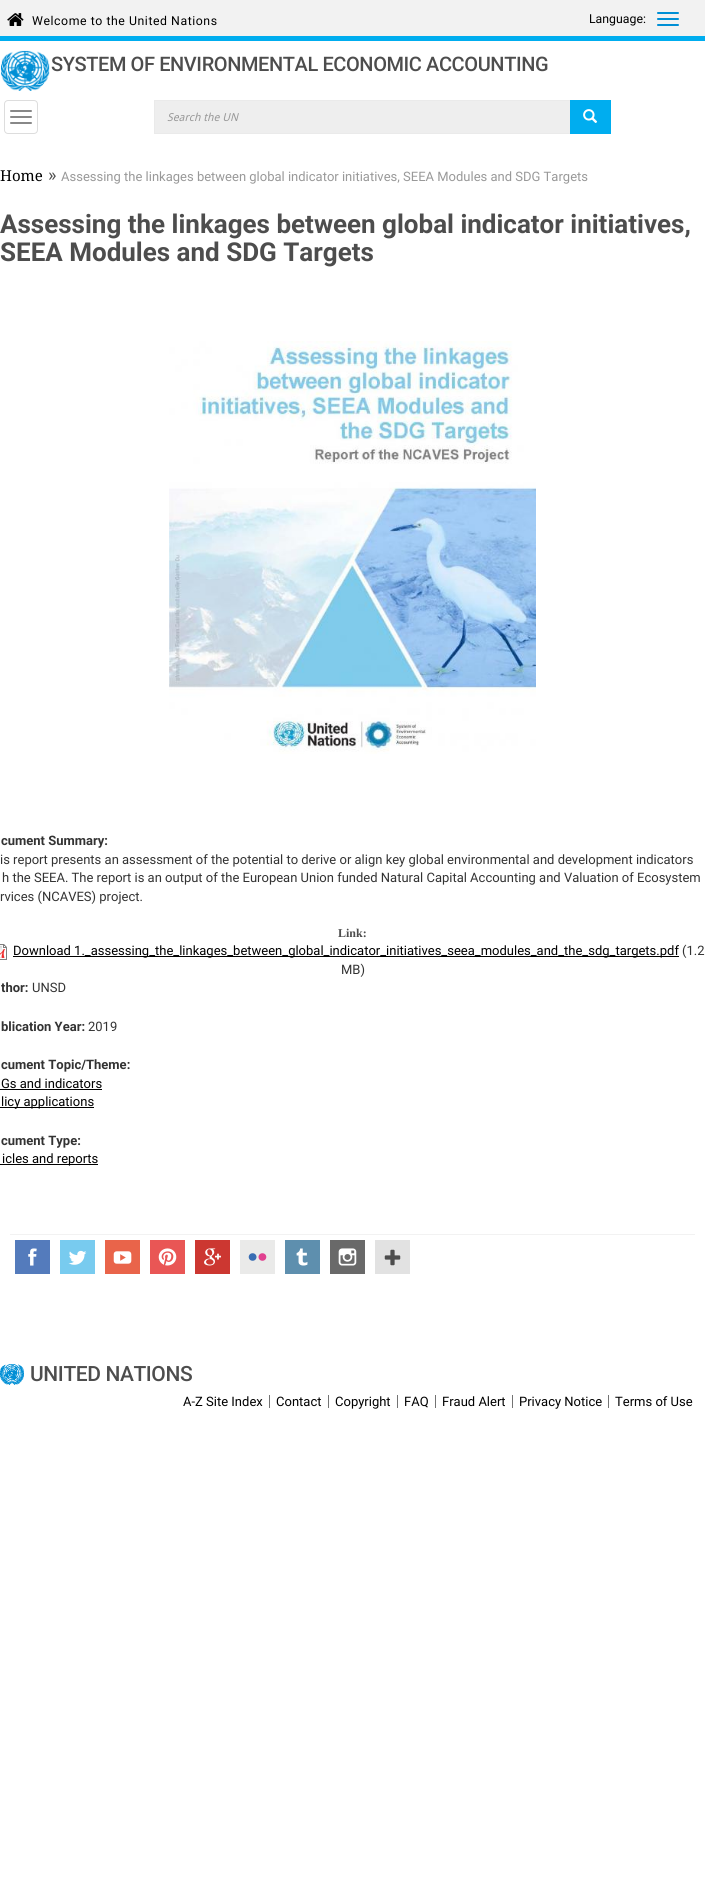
#include <cairo.h>
#include <math.h>
#include <stddef.h>

typedef struct { const char *family; double size; int italic, bold; unsigned color; } style_t;
static cairo_t *ctx;

static void ink(unsigned color) {
    cairo_set_source_rgb(ctx, (color >> 16) / 255.0, (color >> 8 & 255) / 255.0, (color & 255) / 255.0);
}

static void write(double x, double y, const char *s, const style_t *st) {
    cairo_select_font_face(ctx, st->family, st->italic ? CAIRO_FONT_SLANT_ITALIC : CAIRO_FONT_SLANT_NORMAL,
        st->bold ? CAIRO_FONT_WEIGHT_BOLD : CAIRO_FONT_WEIGHT_NORMAL);
    cairo_set_font_size(ctx, st->size);
    ink(st->color);
    cairo_move_to(ctx, x, y);
    cairo_show_text(ctx, s);
}

static void write_spaced(double x, double y, const char *s, double letter, double word) {
    cairo_move_to(ctx, x, y);
    while (*s) {
        char ch[5] = {0};
        int n = 0;
        do ch[n++] = *s++; while ((*s & 0xC0) == 0x80);
        cairo_show_text(ctx, ch);
        cairo_rel_move_to(ctx, letter + word * (*ch == ' '), 0);
    }
}

static void block(double x, double y, double w, double h, unsigned color) {
    ink(color);
    cairo_rectangle(ctx, x, y, w, h);
    cairo_fill(ctx);
}

static void round_path(double x, double y, double w, double h, double r) {
    cairo_new_sub_path(ctx);
    cairo_arc(ctx, x + w - r, y + h - r, r, 0, M_PI / 2);
    cairo_arc(ctx, x + r, y + h - r, r, M_PI / 2, M_PI);
    cairo_arc(ctx, x + r, y + r, r, M_PI, 1.5 * M_PI);
    cairo_arc(ctx, x + w - r, y + r, r, 1.5 * M_PI, 2 * M_PI);
    cairo_close_path(ctx);
}

static void paste(const char *path, double x, double y, double w, double h) {
    cairo_surface_t *image = cairo_image_surface_create_from_png(path);
    cairo_save(ctx);
    cairo_set_source_surface(ctx, image, x, y);
    cairo_rectangle(ctx, x, y, w, h);
    cairo_fill(ctx);
    cairo_restore(ctx);
    cairo_surface_destroy(image);
}

static const style_t s1 = {"Roboto", 12.3, 0, 0, 0x000000};
static const style_t s2 = {"Droid Sans", 11, 1, 0, 0x999999};
static const style_t s3 = {"Noto Naskh Arabic", 15, 0, 0, 0x000000};
static const style_t s4 = {"Roboto", 18, 0, 0, 0x4d4d4d};
static const style_t s5 = {"Roboto", 13, 0, 0, 0x999999};
static const style_t s6 = {"Roboto", 26, 0, 1, 0x4d4d4d};
static const style_t s7 = {"Roboto", 13, 0, 1, 0x333333};
static const style_t s8 = {"Roboto", 13, 0, 0, 0x333333};
static const style_t s9 = {"Liberation Serif", 12, 0, 1, 0x4d4d4d};
static const style_t s10 = {"Roboto", 13, 0, 0, 0x000000};

int main(void) {
    cairo_surface_t *surface = cairo_image_surface_create(CAIRO_FORMAT_RGB24, 705, 1882);
    ctx = cairo_create(surface);
    cairo_font_options_t *options = cairo_font_options_create();
    cairo_font_options_set_hint_metrics(options, CAIRO_HINT_METRICS_OFF);
    cairo_font_options_set_hint_style(options, CAIRO_HINT_STYLE_NONE);
    cairo_set_font_options(ctx, options);
    cairo_set_miter_limit(ctx, 4);
    ink(0xffffff);
    cairo_paint(ctx);
    block(0, 0, 705, 36, 0xf2f2f2);
    block(0, 36, 705, 5, 0x00adef);
    paste("pic1.png", 7, 13, 17, 13);
    cairo_select_font_face(ctx, "Roboto", CAIRO_FONT_SLANT_NORMAL, CAIRO_FONT_WEIGHT_NORMAL);
    cairo_set_font_size(ctx, 12.3);
    ink(0x000000);
    write_spaced(32, 25, "Welcome to the United Nations", 0.55, 0);
    write(589, 23, "Language:", &s1);
    ink(0x008fd5);
    round_path(657, 12, 22, 2, 1);
    cairo_fill(ctx);
    round_path(657, 18, 22, 2, 1);
    cairo_fill(ctx);
    round_path(657, 24, 22, 2, 1);
    cairo_fill(ctx);
    round_path(4.5, 100.5, 33, 33, 3.5);
    ink(0xdddddd);
    cairo_set_line_width(ctx, 1);
    cairo_stroke(ctx);
    ink(0x888888);
    round_path(10, 110, 22, 2, 1);
    cairo_fill(ctx);
    round_path(10, 116, 22, 2, 1);
    cairo_fill(ctx);
    round_path(10, 122, 22, 2, 1);
    cairo_fill(ctx);
    paste("pic2.png", 1, 50, 49, 41);
    cairo_select_font_face(ctx, "Roboto Medium", CAIRO_FONT_SLANT_NORMAL, CAIRO_FONT_WEIGHT_NORMAL);
    cairo_set_font_size(ctx, 20);
    ink(0x4d4d4d);
    write_spaced(51, 71, "SYSTEM OF ENVIRONMENTAL ECONOMIC ACCOUNTING", -0.4, 0);
    ink(0xeeeeee);
    cairo_rectangle(ctx, 154.5, 100.5, 416, 33);
    cairo_fill_preserve(ctx);
    ink(0xeaeaea);
    cairo_stroke(ctx);
    write(167, 121, "Search the UN", &s2);
    block(570, 100, 41, 34, 0x00adef);
    paste("pic3.png", 583, 109, 15, 14);
    write(0, 181, "Home", &s3);
    write(48, 181, "»", &s4);
    write(61, 181, "Assessing the linkages between global indicator initiatives, SEEA Modules and SDG Targets", &s5);
    write(0, 233, "Assessing the linkages between global indicator initiatives,", &s6);
    write(0, 261, "SEEA Modules and SDG Targets", &s6);
    paste("pic4.png", 169, 341, 367, 413);
    write(1, 845, "cument Summary:", &s7);
    write(0, 864, "is report presents an assessment of the potential to derive or align key global environmental and development indicators", &s8);
    write(2, 882, "h the SEEA. The report is an output of the European Union funded Natural Capital Accounting and Valuation of Ecosystem", &s8);
    write(0, 901, "rvices (NCAVES) project.", &s8);
    write(338, 937, "Link:", &s9);
    paste("pic5.png", 0, 944, 7, 16);
    block(13, 956, 666, 1, 0x000000);
    write(13, 955, "Download 1._assessing_the_linkages_between_global_indicator_initiatives_seea_modules_and_the_sdg_targets.pdf", &s10);
    write(682, 955, "(1.2", &s8);
    write(341, 974, "MB)", &s8);
    write(1, 992, "thor:", &s7);
    write(32, 992, "UNSD", &s8);
    write(1, 1031, "blication Year:", &s7);
    write(88, 1031, "2019", &s8);
    write(1, 1069, "cument Topic/Theme:", &s7);
    write(1, 1088, "Gs and indicators", &s10);
    block(0, 1089, 102, 1, 0x000000);
    block(0, 1107, 94, 1, 0x000000);
    write(1, 1106, "licy applications", &s10);
    write(1, 1145, "cument Type:", &s7);
    block(0, 1164, 98, 1, 0x000000);
    write(2, 1163, "icles and reports", &s10);
    block(10, 1234, 685, 1, 0xf2f2f2);
    paste("pic6.png", 15, 1240, 35, 34);
    paste("pic7.png", 60, 1240, 35, 34);
    paste("pic8.png", 105, 1240, 35, 34);
    paste("pic9.png", 150, 1240, 35, 34);
    paste("pic10.png", 195, 1240, 35, 34);
    paste("pic11.png", 240, 1240, 35, 34);
    paste("pic12.png", 285, 1240, 35, 34);
    paste("pic13.png", 330, 1240, 35, 34);
    paste("pic14.png", 375, 1240, 35, 34);
    paste("pic15.png", 0, 1364, 24, 21);
    cairo_select_font_face(ctx, "Roboto Medium", CAIRO_FONT_SLANT_NORMAL, CAIRO_FONT_WEIGHT_NORMAL);
    cairo_set_font_size(ctx, 21);
    ink(0x4d4d4d);
    write_spaced(30, 1381, "UNITED NATIONS", -0.4, 0);
    block(269, 1395, 1, 13, 0x737373);
    write(183, 1406, "A-Z Site Index", &s10);
    block(328, 1395, 1, 13, 0x737373);
    write(276, 1406, "Contact", &s10);
    block(397, 1395, 1, 13, 0x737373);
    write(335, 1406, "Copyright", &s10);
    block(435, 1395, 1, 13, 0x737373);
    write(404, 1406, "FAQ", &s10);
    block(512, 1395, 1, 13, 0x737373);
    write(442, 1406, "Fraud Alert", &s10);
    block(608, 1395, 1, 13, 0x737373);
    write(519, 1406, "Privacy Notice", &s10);
    write(615, 1406, "Terms of Use", &s10);
    cairo_surface_write_to_png(surface, "screenshot.png");
    cairo_font_options_destroy(options);
    cairo_destroy(ctx);
    cairo_surface_destroy(surface);
    return 0;
}
